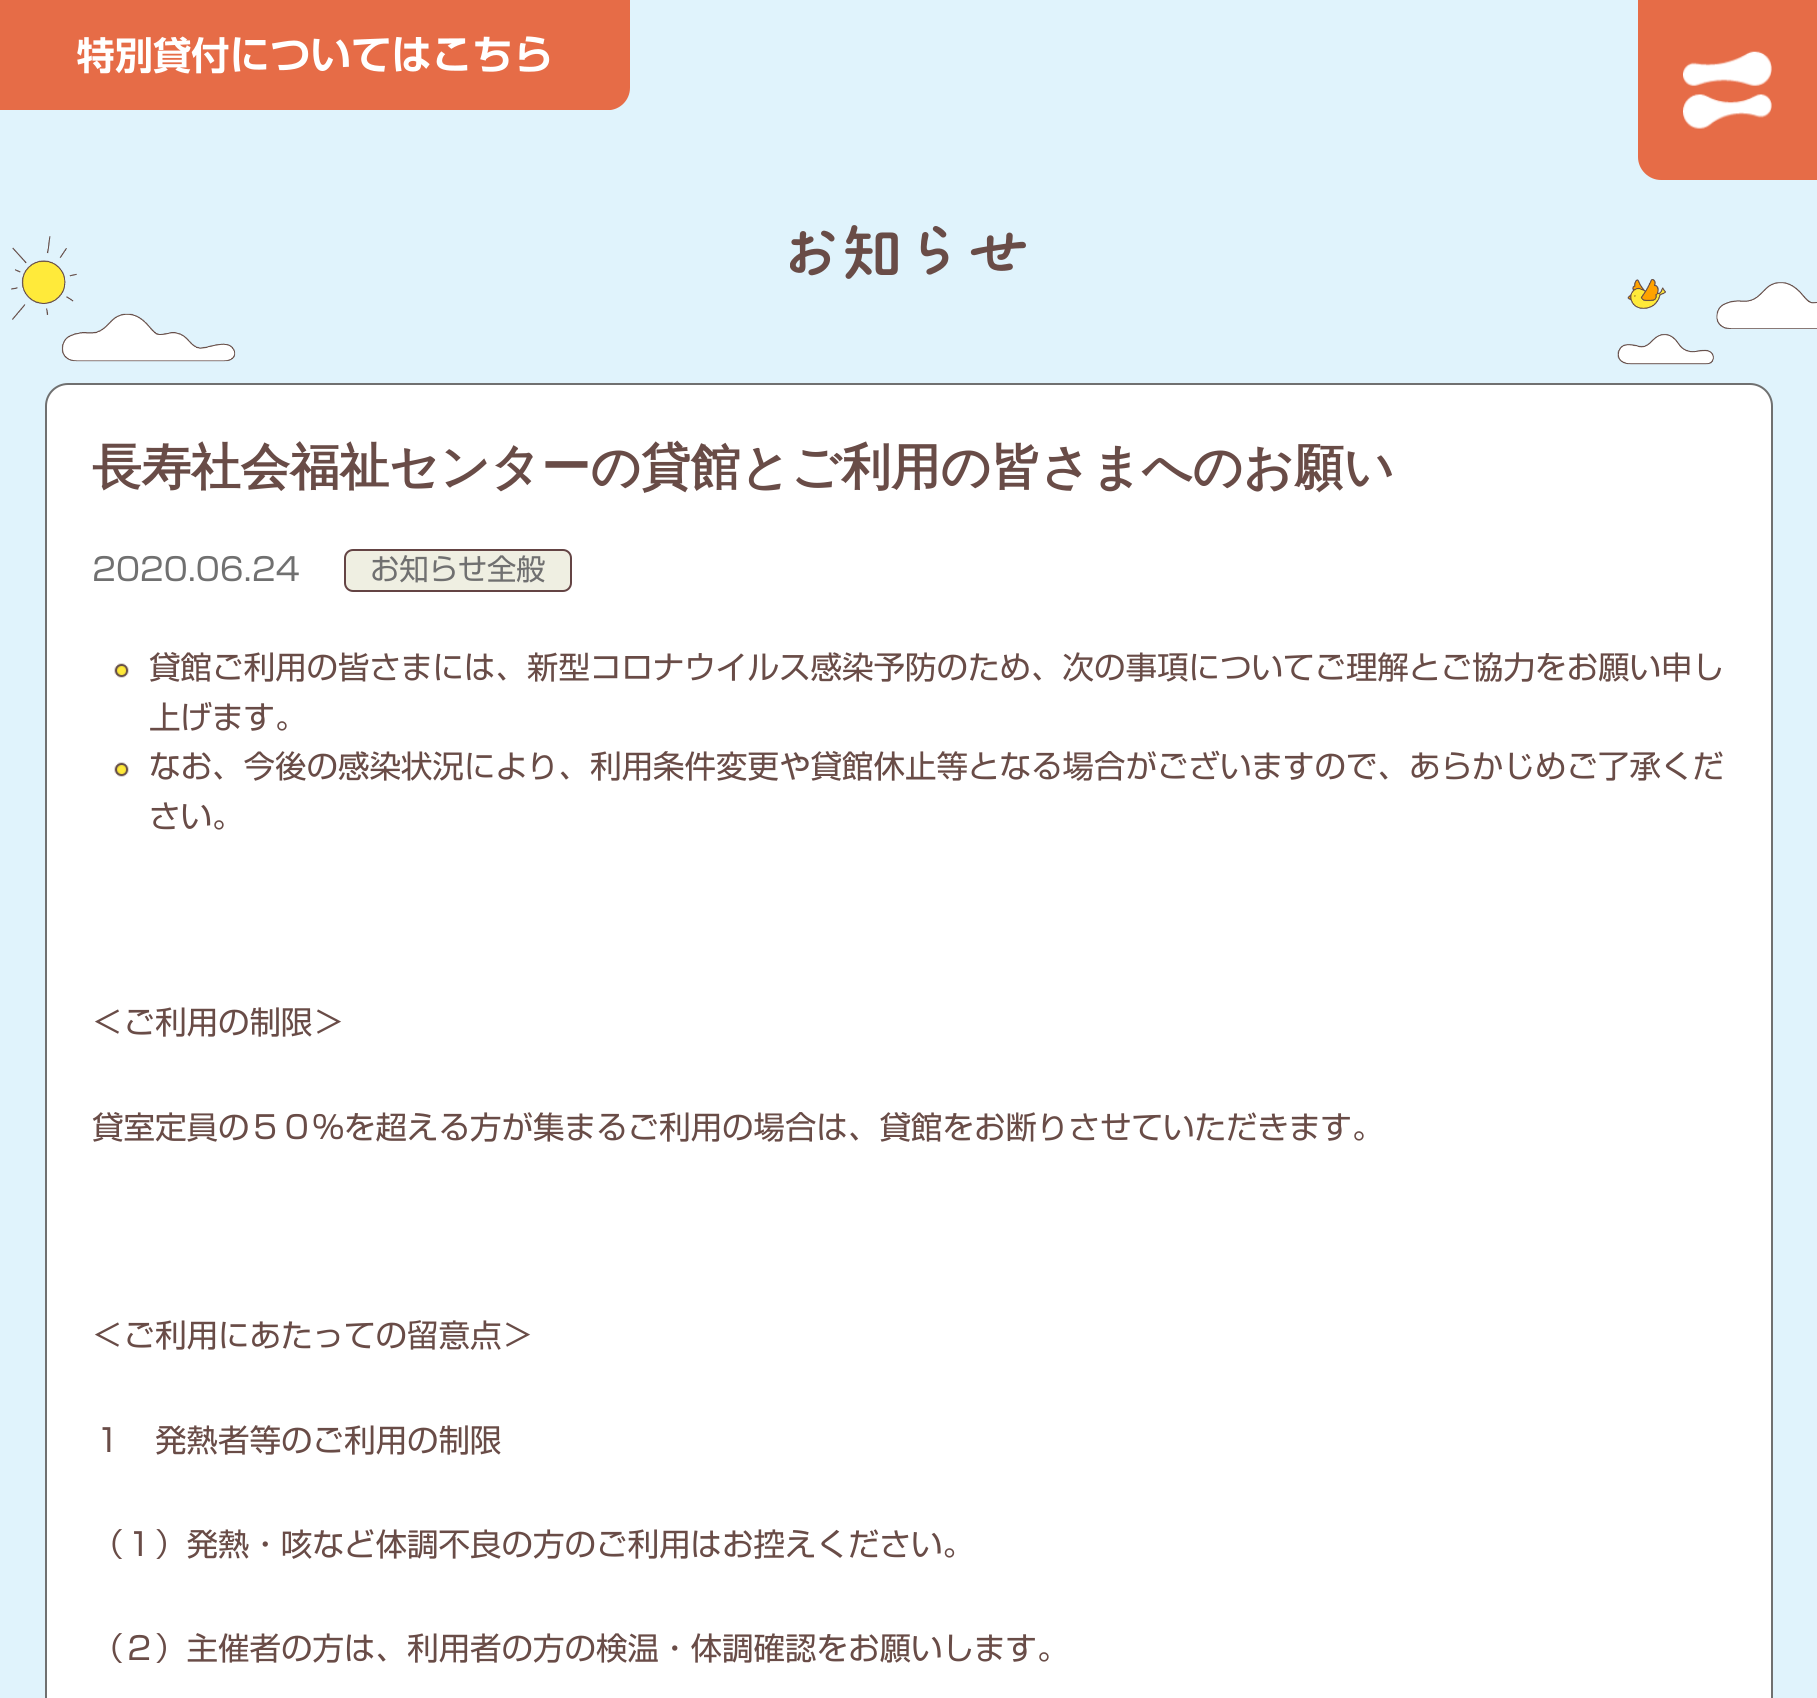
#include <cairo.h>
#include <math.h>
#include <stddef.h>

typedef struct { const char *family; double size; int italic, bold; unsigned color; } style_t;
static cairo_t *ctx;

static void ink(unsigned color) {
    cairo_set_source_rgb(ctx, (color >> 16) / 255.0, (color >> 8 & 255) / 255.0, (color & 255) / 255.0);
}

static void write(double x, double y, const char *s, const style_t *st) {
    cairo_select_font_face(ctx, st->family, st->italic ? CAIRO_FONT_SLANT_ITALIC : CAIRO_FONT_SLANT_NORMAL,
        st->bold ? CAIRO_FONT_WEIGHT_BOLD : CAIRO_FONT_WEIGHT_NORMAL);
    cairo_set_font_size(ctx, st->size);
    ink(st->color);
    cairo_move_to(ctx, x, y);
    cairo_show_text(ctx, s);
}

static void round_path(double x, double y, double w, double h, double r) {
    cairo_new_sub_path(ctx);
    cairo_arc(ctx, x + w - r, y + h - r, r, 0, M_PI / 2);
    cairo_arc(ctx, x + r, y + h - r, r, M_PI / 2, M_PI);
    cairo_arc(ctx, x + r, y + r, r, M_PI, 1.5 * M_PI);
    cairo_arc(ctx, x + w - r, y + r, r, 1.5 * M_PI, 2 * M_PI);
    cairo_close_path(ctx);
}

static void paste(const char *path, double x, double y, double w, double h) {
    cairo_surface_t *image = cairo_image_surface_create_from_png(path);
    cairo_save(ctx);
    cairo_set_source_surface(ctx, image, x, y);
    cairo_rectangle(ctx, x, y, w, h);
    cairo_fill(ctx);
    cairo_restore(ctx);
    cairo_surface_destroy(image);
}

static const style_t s1 = {"WenQuanYi Zen Hei", 49.5, 0, 1, 0x694c47};
static const style_t s2 = {"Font", 31.5, 0, 0, 0x707070};
static const style_t s3 = {"Font", 29.25, 0, 0, 0x707070};
static const style_t s4 = {"Font", 31.5, 0, 0, 0x694c47};

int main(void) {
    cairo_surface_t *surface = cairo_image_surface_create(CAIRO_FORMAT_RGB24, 1817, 1698);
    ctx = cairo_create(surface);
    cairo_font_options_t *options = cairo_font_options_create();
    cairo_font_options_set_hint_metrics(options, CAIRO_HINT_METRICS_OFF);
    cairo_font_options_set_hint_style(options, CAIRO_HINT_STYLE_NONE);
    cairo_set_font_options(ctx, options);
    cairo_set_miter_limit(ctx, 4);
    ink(0xe0f3fc);
    cairo_paint(ctx);
    paste("pic1.png", 0, 0, 630, 110);
    ink(0xe66c47);
    cairo_new_path(ctx);
    cairo_move_to(ctx, 1638, 0);
    cairo_line_to(ctx, 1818, 0);
    cairo_line_to(ctx, 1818, 180);
    cairo_line_to(ctx, 1661, 180);
    cairo_curve_to(ctx, 1648.5, 180, 1638, 169.5, 1638, 157);
    cairo_close_path(ctx);
    cairo_fill(ctx);
    paste("pic2.png", 1683, 51, 89, 35);
    paste("pic3.png", 1683, 94, 89, 35);
    paste("pic4.png", 11, 236, 225, 126);
    paste("pic5.png", 790, 225, 236, 54);
    paste("pic6.png", 1617, 279, 200, 86);
    ink(0xffffff);
    round_path(46, 384, 1726, 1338, 22);
    cairo_fill_preserve(ctx);
    ink(0x707070);
    cairo_stroke(ctx);
    write(92, 484, "長寿社会福祉センターの貸館とご利用の皆さまへのお願い", &s1);
    write(92, 581, "2020.06.24", &s2);
    ink(0xefefe2);
    round_path(345, 550, 226, 41, 8);
    cairo_fill_preserve(ctx);
    ink(0x644444);
    cairo_stroke(ctx);
    write(370, 580, "お知らせ全般", &s3);
    paste("pic7.png", 114, 663, 15, 15);
    write(149, 679, "貸館ご利用の皆さまには、新型コロナウイルス感染予防のため、次の事項についてご理解とご協力をお願い申し", &s4);
    write(149, 729, "上げます。", &s4);
    paste("pic7.png", 114, 762, 15, 15);
    write(149, 778, "なお、今後の感染状況により、利用条件変更や貸館休止等となる場合がございますので、あらかじめご了承くだ", &s4);
    write(149, 828, "さい。", &s4);
    write(92, 1034, "＜ご利用の制限＞", &s4);
    write(92, 1139, "貸室定員の５０％を超える方が集まるご利用の場合は、貸館をお断りさせていただきます。", &s4);
    write(92, 1347, "＜ご利用にあたっての留意点＞", &s4);
    write(92, 1452, "１　発熱者等のご利用の制限", &s4);
    write(92, 1556, "（１）発熱・咳など体調不良の方のご利用はお控えください。", &s4);
    write(92, 1660, "（２）主催者の方は、利用者の方の検温・体調確認をお願いします。", &s4);
    cairo_surface_write_to_png(surface, "screenshot.png");
    cairo_font_options_destroy(options);
    cairo_destroy(ctx);
    cairo_surface_destroy(surface);
    return 0;
}
